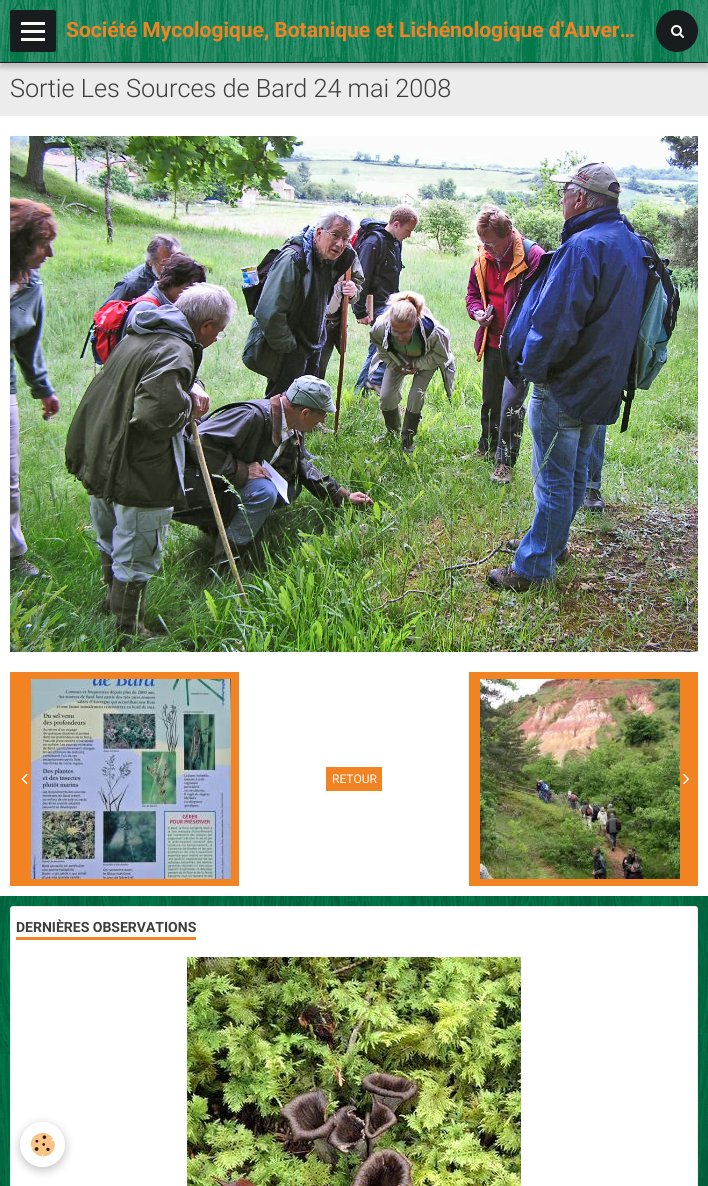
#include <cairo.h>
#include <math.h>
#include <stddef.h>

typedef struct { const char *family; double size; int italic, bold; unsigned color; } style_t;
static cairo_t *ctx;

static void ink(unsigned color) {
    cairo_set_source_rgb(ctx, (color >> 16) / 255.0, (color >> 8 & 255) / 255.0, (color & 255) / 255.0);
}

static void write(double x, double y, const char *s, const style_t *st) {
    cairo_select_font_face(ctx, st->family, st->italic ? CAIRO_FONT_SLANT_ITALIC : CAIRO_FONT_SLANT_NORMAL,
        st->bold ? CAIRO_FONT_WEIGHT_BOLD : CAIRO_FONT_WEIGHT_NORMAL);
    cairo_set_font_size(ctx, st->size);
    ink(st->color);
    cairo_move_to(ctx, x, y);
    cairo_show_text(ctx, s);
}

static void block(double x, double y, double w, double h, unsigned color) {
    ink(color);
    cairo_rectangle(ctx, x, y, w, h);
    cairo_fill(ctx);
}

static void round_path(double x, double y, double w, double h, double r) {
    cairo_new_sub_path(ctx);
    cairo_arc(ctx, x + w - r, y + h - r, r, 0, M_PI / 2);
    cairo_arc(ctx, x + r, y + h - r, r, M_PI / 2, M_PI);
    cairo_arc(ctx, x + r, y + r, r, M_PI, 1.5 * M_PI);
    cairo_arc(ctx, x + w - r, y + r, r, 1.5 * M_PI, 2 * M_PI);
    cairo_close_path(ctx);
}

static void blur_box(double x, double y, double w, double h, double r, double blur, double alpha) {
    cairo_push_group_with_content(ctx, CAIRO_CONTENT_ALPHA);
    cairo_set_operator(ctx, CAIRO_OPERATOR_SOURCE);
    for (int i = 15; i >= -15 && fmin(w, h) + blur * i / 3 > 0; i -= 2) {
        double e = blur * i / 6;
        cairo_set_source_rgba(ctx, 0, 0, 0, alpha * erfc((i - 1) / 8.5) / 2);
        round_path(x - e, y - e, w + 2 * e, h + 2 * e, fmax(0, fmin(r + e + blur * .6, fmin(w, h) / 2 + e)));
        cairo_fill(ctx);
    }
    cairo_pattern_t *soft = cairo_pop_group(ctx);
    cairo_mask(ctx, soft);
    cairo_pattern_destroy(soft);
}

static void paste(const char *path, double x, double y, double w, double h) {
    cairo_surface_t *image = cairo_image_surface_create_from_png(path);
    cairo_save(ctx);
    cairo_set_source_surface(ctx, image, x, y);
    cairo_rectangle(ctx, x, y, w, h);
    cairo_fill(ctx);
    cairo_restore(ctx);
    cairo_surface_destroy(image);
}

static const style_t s1 = {"Roboto", 21, 0, 1, 0xf28322};
static const style_t s2 = {"Roboto Light", 25.25, 0, 0, 0x3d3d3d};
static const style_t s3 = {"Roboto", 12, 0, 0, 0xffffff};
static const style_t s4 = {"Roboto", 14, 0, 1, 0x3d3d3d};

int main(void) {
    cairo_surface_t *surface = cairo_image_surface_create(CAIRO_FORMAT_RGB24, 708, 1186);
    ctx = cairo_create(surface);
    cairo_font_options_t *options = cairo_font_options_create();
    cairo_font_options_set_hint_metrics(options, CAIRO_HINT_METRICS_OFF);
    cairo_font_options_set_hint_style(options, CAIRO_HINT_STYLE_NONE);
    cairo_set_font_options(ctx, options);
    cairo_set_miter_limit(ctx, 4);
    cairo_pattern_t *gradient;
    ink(0xffffff);
    cairo_paint(ctx);
    block(0, 63, 708, 53, 0xececec);
    ink(0x000000);
    blur_box(0, 5, 708, 63, 0, 2.5, 0.2);
    block(0, 0, 708, 62, 0x02774a);
    paste("pic1.png", 0, 0, 708, 62);
    block(0, 62, 708, 1, 0x191c1f);
    round_path(10, 10, 46, 42, 2);
    cairo_fill(ctx);
    block(21, 30, 24, 3, 0xfaf9f3);
    block(21, 22, 24, 3, 0xfaf9f3);
    block(21, 38, 24, 3, 0xfaf9f3);
    write(66, 37, "Société Mycologique, Botanique et Lichénologique d'Auver…", &s1);
    ink(0x191c1f);
    cairo_new_path(ctx);
    cairo_arc(ctx, 677, 31, 21, 0, 2 * M_PI);
    cairo_fill(ctx);
    paste("pic2.png", 671, 25, 13, 13);
    write(10, 97, "Sortie Les Sources de Bard 24 mai 2008", &s2);
    paste("pic3.png", 10, 136, 688, 516);
    block(10, 672, 229, 214, 0xf28322);
    paste("pic4.png", 21, 773, 7, 12);
    paste("pic5.png", 31, 679, 200, 200);
    block(326, 767, 56, 24, 0xf28322);
    write(332, 783, "RETOUR", &s3);
    block(469, 672, 229, 214, 0xf28322);
    paste("pic6.png", 480, 679, 200, 200);
    paste("pic7.png", 683, 773, 7, 12);
    block(0, 896, 708, 290, 0x02774a);
    paste("pic8.png", 0, 896, 708, 290);
    gradient = cairo_pattern_create_linear(354, 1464, 354, 896);
    cairo_pattern_add_color_stop_rgba(gradient, 0, 0, 0, 0, 0.1);
    cairo_pattern_add_color_stop_rgba(gradient, 1, 0, 0, 0, 0);
    cairo_set_source(ctx, gradient);
    cairo_pattern_destroy(gradient);
    cairo_rectangle(ctx, 0, 1018, 708, 168);
    cairo_fill(ctx);
    ink(0xffffff);
    round_path(10.5, 906.5, 687, 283, 2.5);
    cairo_fill_preserve(ctx);
    ink(0xececec);
    cairo_set_line_width(ctx, 1);
    cairo_stroke(ctx);
    write(16, 932, "DERNIÈRES OBSERVATIONS", &s4);
    block(16, 937, 180, 3, 0xf28322);
    paste("pic9.png", 187, 957, 334, 229);
    ink(0x000000);
    blur_box(20, 1125, 45, 45, 22.5, 5, 0.24);
    ink(0xffffff);
    cairo_arc(ctx, 42.5, 1144.5, 22.5, 0, 2 * M_PI);
    cairo_fill(ctx);
    paste("pic10.png", 30, 1132, 25, 25);
    cairo_surface_write_to_png(surface, "screenshot.png");
    cairo_font_options_destroy(options);
    cairo_destroy(ctx);
    cairo_surface_destroy(surface);
    return 0;
}
